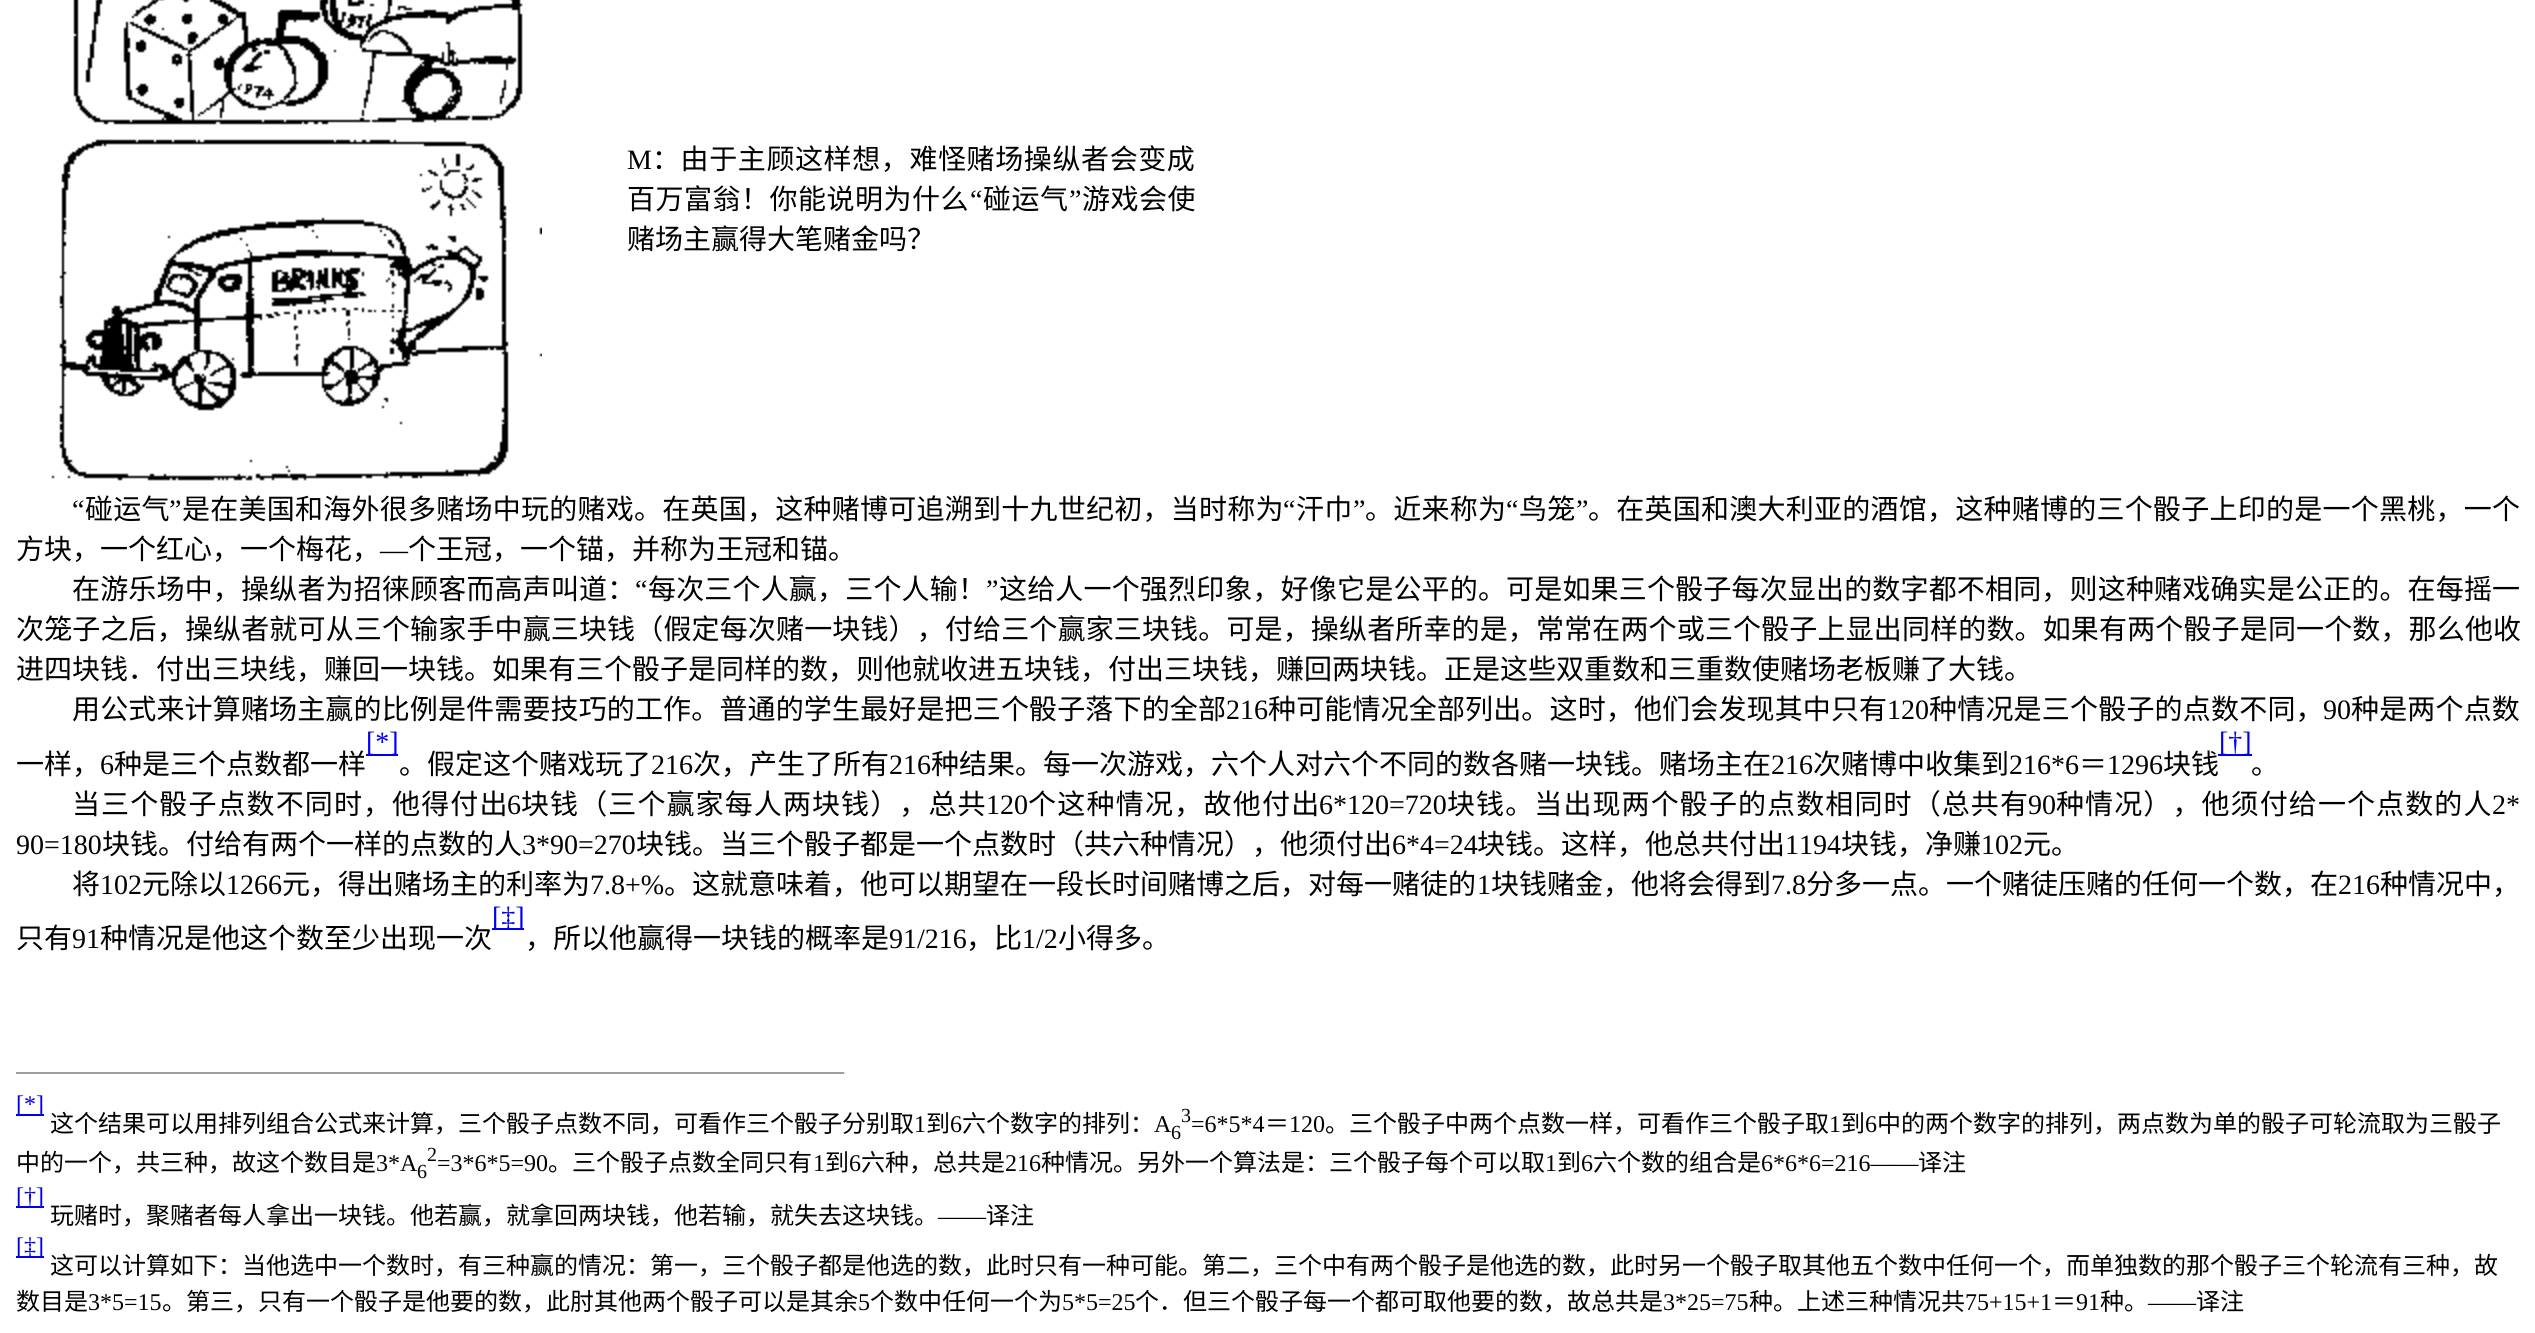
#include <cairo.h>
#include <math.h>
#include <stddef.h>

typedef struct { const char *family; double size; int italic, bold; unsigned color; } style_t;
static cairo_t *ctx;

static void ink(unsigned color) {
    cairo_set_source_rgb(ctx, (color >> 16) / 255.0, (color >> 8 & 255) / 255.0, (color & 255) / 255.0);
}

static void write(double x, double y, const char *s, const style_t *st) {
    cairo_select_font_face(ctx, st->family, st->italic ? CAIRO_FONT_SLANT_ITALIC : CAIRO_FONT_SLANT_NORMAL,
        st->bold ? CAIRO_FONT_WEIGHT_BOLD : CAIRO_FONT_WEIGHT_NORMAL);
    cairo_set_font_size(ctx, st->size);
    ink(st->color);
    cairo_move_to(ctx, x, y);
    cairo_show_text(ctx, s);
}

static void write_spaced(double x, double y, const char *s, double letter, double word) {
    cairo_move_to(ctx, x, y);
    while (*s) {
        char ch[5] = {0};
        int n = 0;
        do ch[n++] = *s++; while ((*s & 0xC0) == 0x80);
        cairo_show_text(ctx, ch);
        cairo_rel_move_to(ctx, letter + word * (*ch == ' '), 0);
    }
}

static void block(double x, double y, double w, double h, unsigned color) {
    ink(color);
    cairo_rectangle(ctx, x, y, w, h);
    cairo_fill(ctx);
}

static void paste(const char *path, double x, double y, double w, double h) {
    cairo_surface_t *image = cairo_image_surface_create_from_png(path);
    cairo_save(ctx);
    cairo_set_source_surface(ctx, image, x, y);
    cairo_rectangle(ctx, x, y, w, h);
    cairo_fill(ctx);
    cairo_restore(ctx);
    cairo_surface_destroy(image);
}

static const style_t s1 = {"Liberation Serif", 28, 0, 0, 0x000000};
static const style_t s2 = {"Noto Sans CJK SC", 28, 0, 0, 0x000000};
static const style_t s3 = {"Liberation Serif", 28, 0, 0, 0x0000ee};
static const style_t s4 = {"Liberation Serif", 24, 0, 0, 0x0000ee};
static const style_t s5 = {"Noto Sans CJK SC", 24, 0, 0, 0x000000};
static const style_t s6 = {"Liberation Serif", 24, 0, 0, 0x000000};
static const style_t s7 = {"Liberation Serif", 20, 0, 0, 0x000000};

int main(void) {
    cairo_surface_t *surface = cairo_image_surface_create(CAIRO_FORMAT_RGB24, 2535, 1333);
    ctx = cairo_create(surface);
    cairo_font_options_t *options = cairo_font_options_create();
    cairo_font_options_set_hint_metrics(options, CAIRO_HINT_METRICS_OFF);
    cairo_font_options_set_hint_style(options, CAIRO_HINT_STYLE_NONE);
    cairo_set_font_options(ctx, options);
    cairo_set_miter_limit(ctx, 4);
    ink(0xffffff);
    cairo_paint(ctx);
    paste("pic1.png", 73, 0, 450, 125);
    paste("pic2.png", 51, 139, 491, 342);
    write(627, 169, "M", &s1);
    cairo_select_font_face(ctx, "Noto Sans CJK SC", CAIRO_FONT_SLANT_NORMAL, CAIRO_FONT_WEIGHT_NORMAL);
    write_spaced(652, 169, "：由于主顾这样想，难怪赌场操纵者会变成", 0.6, 0);
    write_spaced(627, 209, "百万富翁！你能说明为什么", 0.5, 0);
    cairo_select_font_face(ctx, "Liberation Serif", CAIRO_FONT_SLANT_NORMAL, CAIRO_FONT_WEIGHT_NORMAL);
    write_spaced(970, 209, "“", 0.5, 0);
    cairo_select_font_face(ctx, "Noto Sans CJK SC", CAIRO_FONT_SLANT_NORMAL, CAIRO_FONT_WEIGHT_NORMAL);
    write_spaced(983, 209, "碰运气", 0.5, 0);
    cairo_select_font_face(ctx, "Liberation Serif", CAIRO_FONT_SLANT_NORMAL, CAIRO_FONT_WEIGHT_NORMAL);
    write_spaced(1069, 209, "”", 0.5, 0);
    cairo_select_font_face(ctx, "Noto Sans CJK SC", CAIRO_FONT_SLANT_NORMAL, CAIRO_FONT_WEIGHT_NORMAL);
    write_spaced(1082, 209, "游戏会使", 0.5, 0);
    write(627, 249, "赌场主赢得大笔赌金吗？", &s2);
    cairo_select_font_face(ctx, "Liberation Serif", CAIRO_FONT_SLANT_NORMAL, CAIRO_FONT_WEIGHT_NORMAL);
    write_spaced(72, 519, "“", 0.25, 0);
    cairo_select_font_face(ctx, "Noto Sans CJK SC", CAIRO_FONT_SLANT_NORMAL, CAIRO_FONT_WEIGHT_NORMAL);
    write_spaced(85, 519, "碰运气", 0.25, 0);
    cairo_select_font_face(ctx, "Liberation Serif", CAIRO_FONT_SLANT_NORMAL, CAIRO_FONT_WEIGHT_NORMAL);
    write_spaced(169, 519, "”", 0.25, 0);
    cairo_select_font_face(ctx, "Noto Sans CJK SC", CAIRO_FONT_SLANT_NORMAL, CAIRO_FONT_WEIGHT_NORMAL);
    write_spaced(182, 519, "是在美国和海外很多赌场中玩的赌戏。在英国，这种赌博可追溯到十九世纪初，当时称为", 0.25, 0);
    cairo_select_font_face(ctx, "Liberation Serif", CAIRO_FONT_SLANT_NORMAL, CAIRO_FONT_WEIGHT_NORMAL);
    write_spaced(1283, 519, "“", 0.25, 0);
    cairo_select_font_face(ctx, "Noto Sans CJK SC", CAIRO_FONT_SLANT_NORMAL, CAIRO_FONT_WEIGHT_NORMAL);
    write_spaced(1296, 519, "汗巾", 0.25, 0);
    cairo_select_font_face(ctx, "Liberation Serif", CAIRO_FONT_SLANT_NORMAL, CAIRO_FONT_WEIGHT_NORMAL);
    write_spaced(1353, 519, "”", 0.25, 0);
    cairo_select_font_face(ctx, "Noto Sans CJK SC", CAIRO_FONT_SLANT_NORMAL, CAIRO_FONT_WEIGHT_NORMAL);
    write_spaced(1365, 519, "。近来称为", 0.25, 0);
    cairo_select_font_face(ctx, "Liberation Serif", CAIRO_FONT_SLANT_NORMAL, CAIRO_FONT_WEIGHT_NORMAL);
    write_spaced(1506, 519, "“", 0.25, 0);
    cairo_select_font_face(ctx, "Noto Sans CJK SC", CAIRO_FONT_SLANT_NORMAL, CAIRO_FONT_WEIGHT_NORMAL);
    write_spaced(1519, 519, "鸟笼", 0.25, 0);
    cairo_select_font_face(ctx, "Liberation Serif", CAIRO_FONT_SLANT_NORMAL, CAIRO_FONT_WEIGHT_NORMAL);
    write_spaced(1576, 519, "”", 0.25, 0);
    cairo_select_font_face(ctx, "Noto Sans CJK SC", CAIRO_FONT_SLANT_NORMAL, CAIRO_FONT_WEIGHT_NORMAL);
    write_spaced(1588, 519, "。在英国和澳大利亚的酒馆，这种赌博的三个骰子上印的是一个黑桃，一个", 0.25, 0);
    write(16, 559, "方块，一个红心，一个梅花，", &s2);
    write(380, 559, "—", &s1);
    write(408, 559, "个王冠，一个锚，并称为王冠和锚。", &s2);
    write_spaced(72, 599, "在游乐场中，操纵者为招徕顾客而高声叫道：", 0.17, 0);
    cairo_select_font_face(ctx, "Liberation Serif", CAIRO_FONT_SLANT_NORMAL, CAIRO_FONT_WEIGHT_NORMAL);
    write_spaced(635, 599, "“", 0.17, 0);
    cairo_select_font_face(ctx, "Noto Sans CJK SC", CAIRO_FONT_SLANT_NORMAL, CAIRO_FONT_WEIGHT_NORMAL);
    write_spaced(648, 599, "每次三个人赢，三个人输！", 0.17, 0);
    cairo_select_font_face(ctx, "Liberation Serif", CAIRO_FONT_SLANT_NORMAL, CAIRO_FONT_WEIGHT_NORMAL);
    write_spaced(986, 599, "”", 0.17, 0);
    cairo_select_font_face(ctx, "Noto Sans CJK SC", CAIRO_FONT_SLANT_NORMAL, CAIRO_FONT_WEIGHT_NORMAL);
    write_spaced(999, 599, "这给人一个强烈印象，好像它是公平的。可是如果三个骰子每次显出的数字都不相同，则这种赌戏确实是公正的。在每摇一", 0.17, 0);
    write_spaced(16, 639, "次笼子之后，操纵者就可从三个输家手中赢三块钱（假定每次赌一块钱），付给三个赢家三块钱。可是，操纵者所幸的是，常常在两个或三个骰子上显出同样的数。如果有两个骰子是同一个数，那么他收", 0.15, 0);
    write(16, 679, "进四块钱．付出三块线，赚回一块钱。如果有三个骰子是同样的数，则他就收进五块钱，付出三块钱，赚回两块钱。正是这些双重数和三重数使赌场老板赚了大钱。", &s2);
    write_spaced(72, 719, "用公式来计算赌场主赢的比例是件需要技巧的工作。普通的学生最好是把三个骰子落下的全部", 0.15, 0);
    write(1226, 719, "216", &s1);
    cairo_select_font_face(ctx, "Noto Sans CJK SC", CAIRO_FONT_SLANT_NORMAL, CAIRO_FONT_WEIGHT_NORMAL);
    write_spaced(1268, 719, "种可能情况全部列出。这时，他们会发现其中只有", 0.15, 0);
    write(1887, 719, "120", &s1);
    cairo_select_font_face(ctx, "Noto Sans CJK SC", CAIRO_FONT_SLANT_NORMAL, CAIRO_FONT_WEIGHT_NORMAL);
    write_spaced(1929, 719, "种情况是三个骰子的点数不同，", 0.2, 0);
    write(2323, 719, "90", &s1);
    cairo_select_font_face(ctx, "Noto Sans CJK SC", CAIRO_FONT_SLANT_NORMAL, CAIRO_FONT_WEIGHT_NORMAL);
    write_spaced(2351, 719, "种是两个点数", 0.17, 0);
    block(366, 754, 32, 2, 0x0000ee);
    write(366, 751, "[*]", &s3);
    block(2218, 754, 34, 2, 0x0000ee);
    write(2219, 751, "[†]", &s3);
    write(16, 774, "一样，", &s2);
    write(100, 774, "6", &s1);
    write(114, 774, "种是三个点数都一样", &s2);
    write(399, 774, "。假定这个赌戏玩了", &s2);
    write(651, 774, "216", &s1);
    write(693, 774, "次，产生了所有", &s2);
    write(889, 774, "216", &s1);
    write(931, 774, "种结果。每一次游戏，六个人对六个不同的数各赌一块钱。赌场主在", &s2);
    write(1771, 774, "216", &s1);
    write(1813, 774, "次赌博中收集到", &s2);
    write(2009, 774, "216*6", &s1);
    write(2079, 774, "＝", &s2);
    write(2107, 774, "1296", &s1);
    write(2163, 774, "块钱", &s2);
    write(2251, 774, "。", &s2);
    write_spaced(72, 814, "当三个骰子点数不同时，他得付出", 1.1, 0);
    write(507, 814, "6", &s1);
    cairo_select_font_face(ctx, "Noto Sans CJK SC", CAIRO_FONT_SLANT_NORMAL, CAIRO_FONT_WEIGHT_NORMAL);
    write_spaced(521, 814, "块钱（三个赢家每人两块钱），总共", 1.1, 0);
    write(986, 814, "120", &s1);
    cairo_select_font_face(ctx, "Noto Sans CJK SC", CAIRO_FONT_SLANT_NORMAL, CAIRO_FONT_WEIGHT_NORMAL);
    write_spaced(1028, 814, "个这种情况，故他付出", 1.25, 0);
    write(1319, 814, "6*120=720", &s1);
    cairo_select_font_face(ctx, "Noto Sans CJK SC", CAIRO_FONT_SLANT_NORMAL, CAIRO_FONT_WEIGHT_NORMAL);
    write_spaced(1447, 814, "块钱。当出现两个骰子的点数相同时（总共有", 1.1, 0);
    write(2028, 814, "90", &s1);
    cairo_select_font_face(ctx, "Noto Sans CJK SC", CAIRO_FONT_SLANT_NORMAL, CAIRO_FONT_WEIGHT_NORMAL);
    write_spaced(2056, 814, "种情况），他须付给一个点数的人", 1.1, 0);
    write(2492, 814, "2*", &s1);
    write(16, 854, "90=180", &s1);
    write(102, 854, "块钱。付给有两个一样的点数的人", &s2);
    write(522, 854, "3*90=270", &s1);
    write(636, 854, "块钱。当三个骰子都是一个点数时（共六种情况），他须付出", &s2);
    write(1392, 854, "6*4=24", &s1);
    write(1477, 854, "块钱。这样，他总共付出", &s2);
    write(1785, 854, "1194", &s1);
    write(1841, 854, "块钱，净赚", &s2);
    write(1981, 854, "102", &s1);
    write(2023, 854, "元。", &s2);
    write(72, 894, "将", &s2);
    write(100, 894, "102", &s1);
    write(142, 894, "元除以", &s2);
    write(226, 894, "1266", &s1);
    write(282, 894, "元，得出赌场主的利率为", &s2);
    write(590, 894, "7.8+%", &s1);
    write(664, 894, "。这就意味着，他可以期望在一段长时间赌博之后，对每一赌徒的", &s2);
    write(1477, 894, "1", &s1);
    write(1491, 894, "块钱赌金，他将会得到", &s2);
    write(1771, 894, "7.8", &s1);
    write(1806, 894, "分多一点。一个赌徒压赌的任何一个数，在", &s2);
    write(2338, 894, "216", &s1);
    write(2380, 894, "种情况中，", &s2);
    block(492, 928, 32, 2, 0x0000ee);
    write(492, 926, "[‡]", &s3);
    write(16, 948, "只有", &s2);
    write(72, 948, "91", &s1);
    write(100, 948, "种情况是他这个数至少出现一次", &s2);
    write(525, 948, "，所以他赢得一块钱的概率是", &s2);
    write(889, 948, "91/216", &s1);
    write(966, 948, "，比", &s2);
    write(1022, 948, "1/2", &s1);
    write(1058, 948, "小得多。", &s2);
    block(16, 1072, 830, 2, 0x9f9f9f);
    block(844, 1072, 2, 2, 0xeeeeee);
    block(16, 1114, 28, 2, 0x0000ee);
    write(16, 1112, "[*]", &s4);
    write(50, 1132, "这个结果可以用排列组合公式来计算，三个骰子点数不同，可看作三个骰子分别取", &s5);
    write(914, 1132, "1", &s6);
    write(926, 1132, "到", &s5);
    write(950, 1132, "6", &s6);
    write(962, 1132, "六个数字的排列：", &s5);
    write(1154, 1132, "A", &s6);
    write(1181, 1122, "3", &s7);
    write(1191, 1132, "=6*5*4", &s6);
    write(1265, 1132, "＝", &s5);
    write(1289, 1132, "120", &s6);
    write(1325, 1132, "。三个骰子中两个点数一样，可看作三个骰子取", &s5);
    write(1829, 1132, "1", &s6);
    write(1841, 1132, "到", &s5);
    write(1865, 1132, "6", &s6);
    write(1877, 1132, "中的两个数字的排列，两点数为单的骰子可轮流取为三骰子", &s5);
    write(1171, 1139, "6", &s7);
    write(16, 1171, "中的一个，共三种，故这个数目是", &s5);
    write(376, 1171, "3*A", &s6);
    write(417, 1178, "6", &s7);
    write(427, 1161, "2", &s7);
    write(437, 1171, "=3*6*5=90", &s6);
    write(548, 1171, "。三个骰子点数全同只有", &s5);
    write(813, 1171, "1", &s6);
    write(825, 1171, "到", &s5);
    write(849, 1171, "6", &s6);
    write(861, 1171, "六种，总共是", &s5);
    write(1005, 1171, "216", &s6);
    write(1041, 1171, "种情况。另外一个算法是：三个骰子每个可以取", &s5);
    write(1545, 1171, "1", &s6);
    write(1557, 1171, "到", &s5);
    write(1581, 1171, "6", &s6);
    write(1593, 1171, "六个数的组合是", &s5);
    write(1761, 1171, "6*6*6=216——", &s6);
    write(1918, 1171, "译注", &s5);
    block(16, 1206, 28, 2, 0x0000ee);
    write(16, 1204, "[†]", &s4);
    write(50, 1224, "玩赌时，聚赌者每人拿出一块钱。他若赢，就拿回两块钱，他若输，就失去这块钱。", &s5);
    write(938, 1224, "——", &s6);
    write(986, 1224, "译注", &s5);
    block(16, 1256, 28, 2, 0x0000ee);
    write(16, 1254, "[‡]", &s4);
    write(50, 1274, "这可以计算如下：当他选中一个数时，有三种赢的情况：第一，三个骰子都是他选的数，此时只有一种可能。第二，三个中有两个骰子是他选的数，此时另一个骰子取其他五个数中任何一个，而单独数的那个骰子三个轮流有三种，故", &s5);
    write(16, 1310, "数目是", &s5);
    write(88, 1310, "3*5=15", &s6);
    write(162, 1310, "。第三，只有一个骰子是他要的数，此肘其他两个骰子可以是其余", &s5);
    write(858, 1310, "5", &s6);
    write(870, 1310, "个数中任何一个为", &s5);
    write(1062, 1310, "5*5=25", &s6);
    write(1135, 1310, "个．但三个骰子每一个都可取他要的数，故总共是", &s5);
    write(1663, 1310, "3*25=75", &s6);
    write(1749, 1310, "种。上述三种情况共", &s5);
    write(1965, 1310, "75+15+1", &s6);
    write(2052, 1310, "＝", &s5);
    write(2076, 1310, "91", &s6);
    write(2100, 1310, "种。", &s5);
    write(2148, 1310, "——", &s6);
    write(2196, 1310, "译注", &s5);
    cairo_surface_write_to_png(surface, "screenshot.png");
    cairo_font_options_destroy(options);
    cairo_destroy(ctx);
    cairo_surface_destroy(surface);
    return 0;
}
